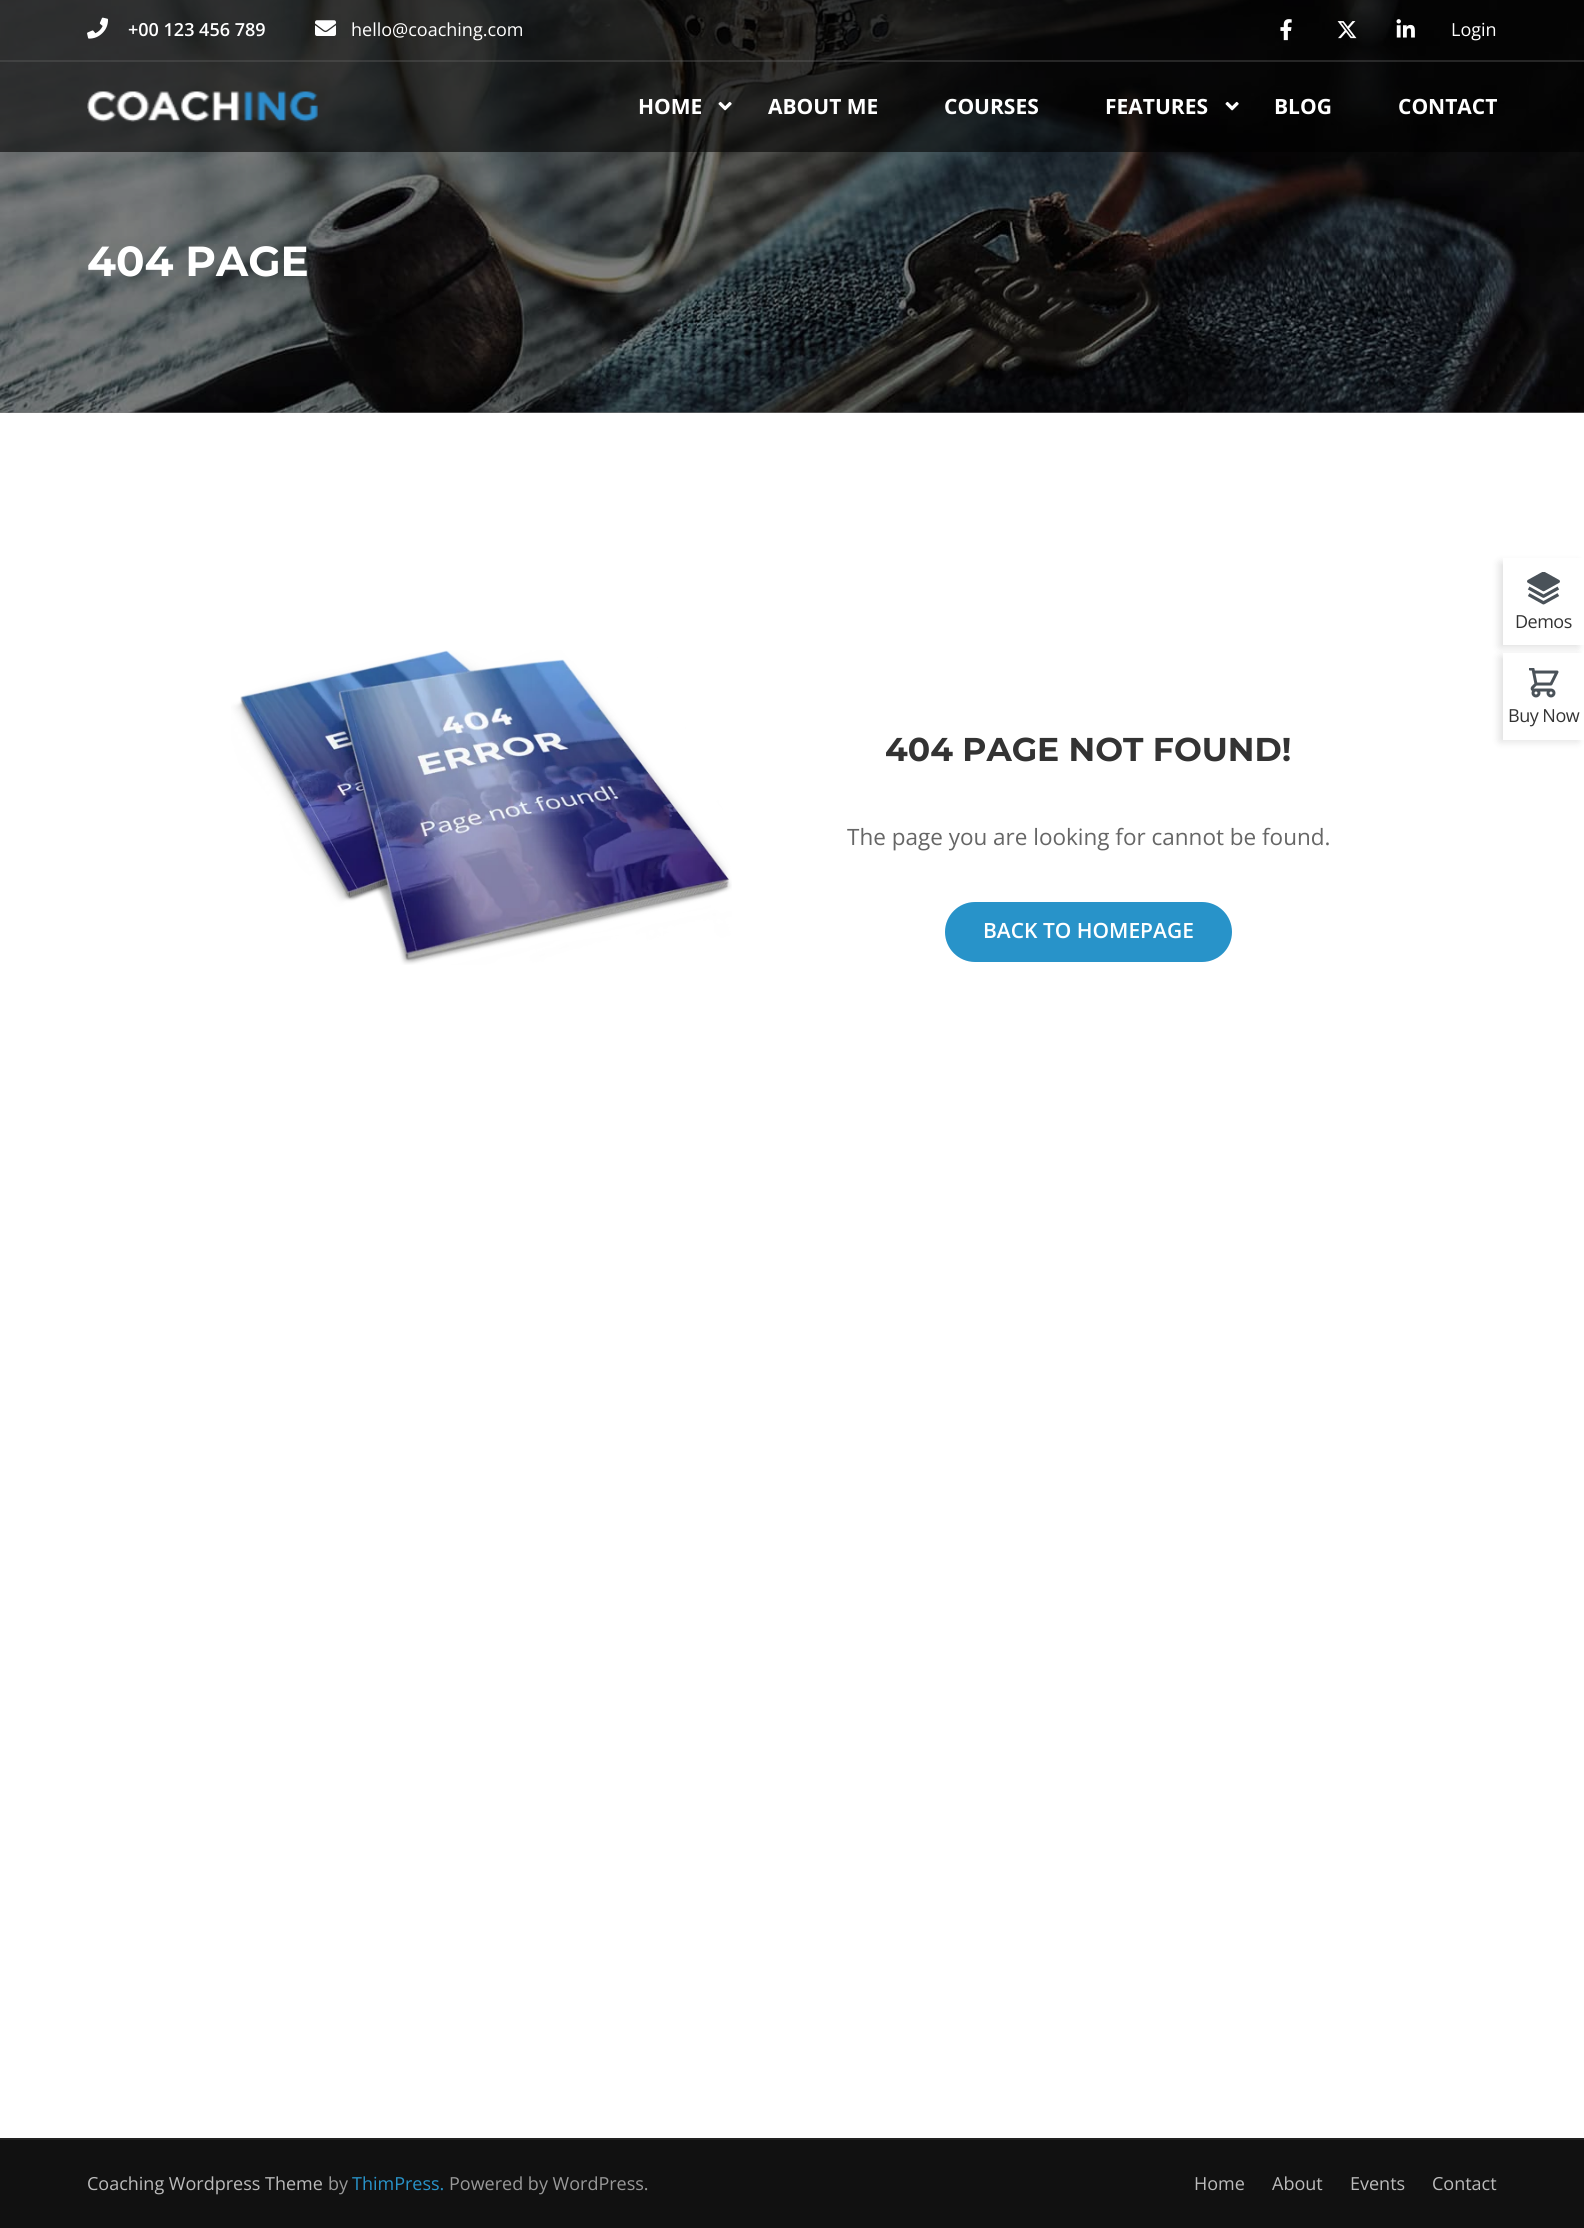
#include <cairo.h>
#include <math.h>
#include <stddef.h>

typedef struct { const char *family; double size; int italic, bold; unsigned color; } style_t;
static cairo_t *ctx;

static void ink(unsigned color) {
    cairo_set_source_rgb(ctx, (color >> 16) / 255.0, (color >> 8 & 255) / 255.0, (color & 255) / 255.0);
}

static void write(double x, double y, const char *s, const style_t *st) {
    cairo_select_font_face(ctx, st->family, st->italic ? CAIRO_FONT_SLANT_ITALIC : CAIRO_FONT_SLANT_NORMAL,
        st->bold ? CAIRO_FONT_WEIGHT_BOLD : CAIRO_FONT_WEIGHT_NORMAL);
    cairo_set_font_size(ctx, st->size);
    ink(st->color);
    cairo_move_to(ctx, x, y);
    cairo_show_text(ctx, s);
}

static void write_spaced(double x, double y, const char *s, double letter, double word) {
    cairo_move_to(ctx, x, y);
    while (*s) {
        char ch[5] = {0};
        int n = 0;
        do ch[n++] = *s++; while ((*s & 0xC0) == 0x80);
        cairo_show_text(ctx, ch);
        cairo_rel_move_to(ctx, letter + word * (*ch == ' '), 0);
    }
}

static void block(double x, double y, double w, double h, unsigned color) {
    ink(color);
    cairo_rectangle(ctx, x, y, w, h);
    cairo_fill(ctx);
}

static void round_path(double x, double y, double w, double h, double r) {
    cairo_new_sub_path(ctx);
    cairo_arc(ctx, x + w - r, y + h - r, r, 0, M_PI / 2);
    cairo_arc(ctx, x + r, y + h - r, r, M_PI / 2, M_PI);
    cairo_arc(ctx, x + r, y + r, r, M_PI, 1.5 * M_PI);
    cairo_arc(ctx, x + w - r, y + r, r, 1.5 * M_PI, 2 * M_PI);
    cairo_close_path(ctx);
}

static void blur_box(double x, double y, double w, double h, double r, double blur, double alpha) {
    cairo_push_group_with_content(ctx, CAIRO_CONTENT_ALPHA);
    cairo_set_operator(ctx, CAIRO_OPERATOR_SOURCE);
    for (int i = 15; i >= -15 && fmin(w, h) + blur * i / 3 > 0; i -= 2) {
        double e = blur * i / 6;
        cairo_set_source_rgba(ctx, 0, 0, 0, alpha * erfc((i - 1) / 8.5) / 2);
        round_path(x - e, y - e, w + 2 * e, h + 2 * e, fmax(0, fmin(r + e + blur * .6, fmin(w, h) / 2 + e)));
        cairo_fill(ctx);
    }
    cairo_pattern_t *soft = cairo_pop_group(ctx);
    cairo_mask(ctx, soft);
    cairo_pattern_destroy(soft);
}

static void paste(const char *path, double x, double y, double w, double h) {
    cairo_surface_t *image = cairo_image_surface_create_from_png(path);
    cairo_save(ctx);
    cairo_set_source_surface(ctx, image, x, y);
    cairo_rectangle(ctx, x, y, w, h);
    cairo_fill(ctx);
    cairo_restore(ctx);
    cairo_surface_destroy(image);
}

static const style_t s1 = {"Open Sans SemiBold", 18, 0, 0, 0xffffff};
static const style_t s2 = {"Open Sans", 18, 0, 0, 0xffffff};
static const style_t s3 = {"Open Sans", 21, 0, 1, 0xffffff};
static const style_t s4 = {"Montserrat", 42, 0, 1, 0xffffff};
static const style_t s5 = {"Montserrat", 33, 0, 1, 0x333333};
static const style_t s6 = {"Open Sans", 22.5, 0, 0, 0x666666};
static const style_t s7 = {"Open Sans SemiBold", 21, 0, 0, 0xffffff};
static const style_t s8 = {"Open Sans", 18, 0, 0, 0xbbbbbb};
static const style_t s9 = {"Open Sans", 18, 0, 0, 0x999999};
static const style_t s10 = {"Open Sans", 18, 0, 0, 0x2893c9};

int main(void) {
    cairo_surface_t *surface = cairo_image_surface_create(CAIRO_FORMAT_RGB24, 1584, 2228);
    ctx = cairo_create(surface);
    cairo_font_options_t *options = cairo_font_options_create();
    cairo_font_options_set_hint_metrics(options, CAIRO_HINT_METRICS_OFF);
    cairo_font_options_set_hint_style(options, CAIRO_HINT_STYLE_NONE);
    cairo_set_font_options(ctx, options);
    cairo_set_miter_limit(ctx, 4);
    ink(0xffffff);
    cairo_paint(ctx);
    block(0, 412, 1584, 1, 0x808080);
    paste("pic9.png", 0, 0, 1584, 413);
    cairo_set_source_rgba(ctx, 0, 0, 0, 0.6);
    cairo_rectangle(ctx, 0, 0, 1584, 152);
    cairo_fill(ctx);
    cairo_set_source_rgba(ctx, 0.4, 0.4, 0.4, 0.35);
    cairo_rectangle(ctx, 0, 60, 1584, 2);
    cairo_fill(ctx);
    paste("pic1.png", 87, 17, 21, 22);
    write(128, 36, "+00 123 456 789", &s1);
    paste("pic2.png", 315, 20, 21, 16);
    write(351, 36, "hello@coaching.com", &s2);
    paste("pic3.png", 1280, 19, 12, 22);
    paste("pic4.png", 1337, 21, 20, 18);
    paste("pic5.png", 1396, 19, 19, 19);
    write(1451, 36, "Login", &s2);
    paste("pic6.png", 87, 91, 231, 31);
    write(638, 114, "HOME", &s3);
    paste("pic7.png", 718, 101, 14, 10);
    write(768, 114, "ABOUT ME", &s3);
    write(944, 114, "COURSES", &s3);
    write(1105, 114, "FEATURES", &s3);
    paste("pic8.png", 1225, 101, 14, 10);
    write(1274, 114, "BLOG", &s3);
    write(1398, 114, "CONTACT", &s3);
    write(87, 276, "404 PAGE", &s4);
    paste("pic10.png", 231, 650, 501, 315);
    write(885, 761, "404 PAGE NOT FOUND!", &s5);
    write(847, 845, "The page you are looking for cannot be found.", &s6);
    ink(0x2893c9);
    round_path(945, 902, 287, 60, 30);
    cairo_fill(ctx);
    write(983, 938, "BACK TO HOMEPAGE", &s7);
    block(0, 2140, 1584, 88, 0x111111);
    block(0, 2138, 1584, 2, 0x222222);
    write(87, 2190, "Coaching Wordpress Theme", &s8);
    write(328, 2190, "by", &s9);
    write(352, 2190, "ThimPress.", &s10);
    write(449, 2190, "Powered by WordPress.", &s9);
    write(1194, 2190, "Home", &s8);
    write(1272, 2190, "About", &s8);
    write(1350, 2190, "Events", &s8);
    write(1432, 2190, "Contact", &s8);
    cairo_save(ctx);
    cairo_set_fill_rule(ctx, CAIRO_FILL_RULE_EVEN_ODD);
    cairo_new_path(ctx);
    cairo_move_to(ctx, 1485, 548);
    cairo_line_to(ctx, 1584, 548);
    cairo_line_to(ctx, 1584, 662);
    cairo_line_to(ctx, 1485, 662);
    cairo_close_path(ctx);
    cairo_move_to(ctx, 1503, 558);
    cairo_line_to(ctx, 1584, 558);
    cairo_line_to(ctx, 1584, 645);
    cairo_line_to(ctx, 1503, 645);
    cairo_close_path(ctx);
    cairo_clip(ctx);
    ink(0x000000);
    blur_box(1500, 563, 78, 84, 0, 4.5, 0.14);
    cairo_restore(ctx);
    paste("pic11.png", 1527, 572, 33, 33);
    ink(0x333333);
    write_spaced(1515, 628, "Demos", -0.5, 0);
    ink(0x000000);
    blur_box(1500, 657, 78, 84, 0, 4.5, 0.14);
    block(1503, 653, 81, 87, 0xffffff);
    paste("pic12.png", 1529, 668, 30, 30);
    ink(0x333333);
    write_spaced(1508, 722, "Buy Now", -0.5, 0);
    cairo_surface_write_to_png(surface, "screenshot.png");
    cairo_font_options_destroy(options);
    cairo_destroy(ctx);
    cairo_surface_destroy(surface);
    return 0;
}
